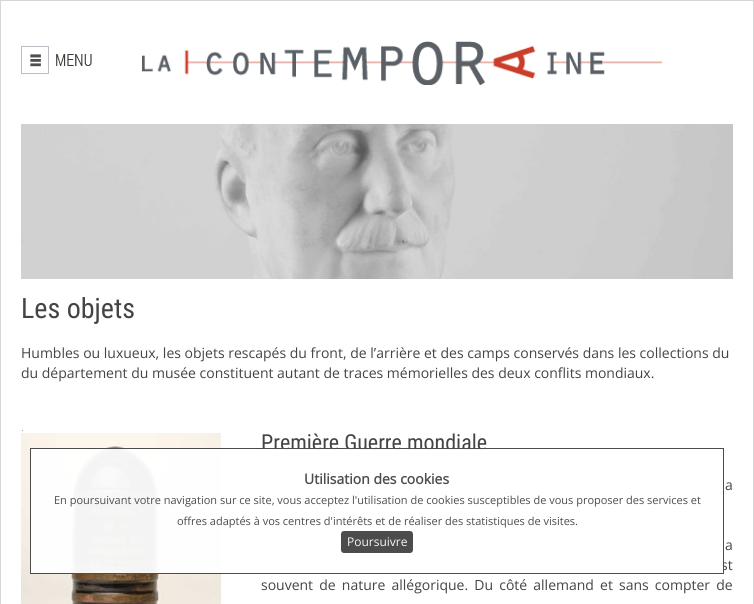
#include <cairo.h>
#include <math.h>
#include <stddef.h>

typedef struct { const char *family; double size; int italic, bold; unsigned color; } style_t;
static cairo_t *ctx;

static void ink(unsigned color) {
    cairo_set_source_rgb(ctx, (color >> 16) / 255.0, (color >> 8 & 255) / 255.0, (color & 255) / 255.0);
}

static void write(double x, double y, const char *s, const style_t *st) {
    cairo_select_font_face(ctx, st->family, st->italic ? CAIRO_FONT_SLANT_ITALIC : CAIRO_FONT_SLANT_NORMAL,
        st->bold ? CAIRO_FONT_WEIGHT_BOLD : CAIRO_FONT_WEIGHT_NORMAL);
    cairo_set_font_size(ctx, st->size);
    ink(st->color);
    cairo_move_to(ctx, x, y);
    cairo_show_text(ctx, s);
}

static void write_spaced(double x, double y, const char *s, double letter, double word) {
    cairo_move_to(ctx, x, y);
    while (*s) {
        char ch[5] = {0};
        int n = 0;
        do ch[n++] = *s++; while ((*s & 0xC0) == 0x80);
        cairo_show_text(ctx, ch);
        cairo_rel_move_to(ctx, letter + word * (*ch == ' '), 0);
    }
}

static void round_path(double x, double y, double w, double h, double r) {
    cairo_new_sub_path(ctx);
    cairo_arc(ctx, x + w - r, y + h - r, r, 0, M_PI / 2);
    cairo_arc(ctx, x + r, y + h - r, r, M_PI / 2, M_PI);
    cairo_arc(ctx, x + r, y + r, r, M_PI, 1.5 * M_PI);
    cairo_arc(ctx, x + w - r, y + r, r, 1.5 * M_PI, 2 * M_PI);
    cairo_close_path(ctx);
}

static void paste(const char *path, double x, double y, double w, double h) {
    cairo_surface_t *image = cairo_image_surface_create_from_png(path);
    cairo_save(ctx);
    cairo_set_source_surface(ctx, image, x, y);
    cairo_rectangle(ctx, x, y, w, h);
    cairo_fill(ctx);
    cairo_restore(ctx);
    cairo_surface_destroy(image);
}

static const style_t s1 = {"Roboto Condensed", 28, 0, 0, 0x444444};
static const style_t s2 = {"Open Sans", 14, 0, 0, 0x444444};
static const style_t s3 = {"Liberation Sans", 10, 0, 0, 0x999999};
static const style_t s4 = {"Roboto Condensed", 22, 0, 0, 0x444444};
static const style_t s5 = {"Open Sans", 14, 0, 1, 0x4d4d4d};
static const style_t s6 = {"Open Sans", 11, 0, 0, 0x4d4d4d};
static const style_t s7 = {"Open Sans", 12, 0, 0, 0xf6f6f6};

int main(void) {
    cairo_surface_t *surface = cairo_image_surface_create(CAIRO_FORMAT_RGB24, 754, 604);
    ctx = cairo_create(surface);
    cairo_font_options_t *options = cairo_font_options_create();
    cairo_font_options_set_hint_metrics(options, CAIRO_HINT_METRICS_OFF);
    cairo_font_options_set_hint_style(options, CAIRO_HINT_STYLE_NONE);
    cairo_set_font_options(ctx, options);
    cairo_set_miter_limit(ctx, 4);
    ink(0xffffff);
    cairo_paint(ctx);
    cairo_rectangle(ctx, 0.5, 0.5, 753, 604);
    ink(0xd6d6d6);
    cairo_set_line_width(ctx, 1);
    cairo_stroke(ctx);
    paste("pic1.png", 21, 46, 71, 28);
    paste("pic2.png", 142, 41, 520, 44);
    paste("pic3.png", 21, 124, 712, 155);
    write(21, 318, "Les objets", &s1);
    write(21, 358, "Humbles ou luxueux, les objets rescapés du front, de l’arrière et des camps conservés dans les collections du", &s2);
    write(21, 378, "du département du musée constituent autant de traces mémorielles des deux conflits mondiaux.", &s2);
    write(21, 431, ".", &s3);
    paste("pic4.png", 21, 433, 200, 171);
    write(261, 450, "Première Guerre mondiale", &s4);
    cairo_select_font_face(ctx, "Open Sans", CAIRO_FONT_SLANT_NORMAL, CAIRO_FONT_WEIGHT_NORMAL);
    cairo_set_font_size(ctx, 14);
    write_spaced(725, 490, "a", 0, 4);
    write_spaced(725, 550, "a", 0, 9);
    write_spaced(721, 570, "st", 0, 6);
    write_spaced(261, 590, "souvent de nature allégorique. Du côté allemand et sans compter de", 0, 2.5);
    cairo_set_source_rgba(ctx, 1, 1, 1, 0.95);
    cairo_rectangle(ctx, 30, 448, 694, 126);
    cairo_fill(ctx);
    cairo_rectangle(ctx, 30.5, 448.5, 693, 125);
    cairo_set_source_rgba(ctx, 0.267, 0.267, 0.267, 0.95);
    cairo_stroke(ctx);
    write(304, 484, "Utilisation des cookies", &s5);
    write(54, 504, "En poursuivant votre navigation sur ce site, vous acceptez l'utilisation de cookies susceptibles de vous proposer des services et", &s6);
    write(177, 525, "offres adaptés à vos centres d'intérêts et de réaliser des statistiques de visites.", &s6);
    cairo_set_source_rgba(ctx, 0.267, 0.267, 0.267, 0.95);
    round_path(341, 531, 72, 22, 3);
    cairo_fill(ctx);
    write(347, 546, "Poursuivre", &s7);
    cairo_surface_write_to_png(surface, "screenshot.png");
    cairo_font_options_destroy(options);
    cairo_destroy(ctx);
    cairo_surface_destroy(surface);
    return 0;
}
